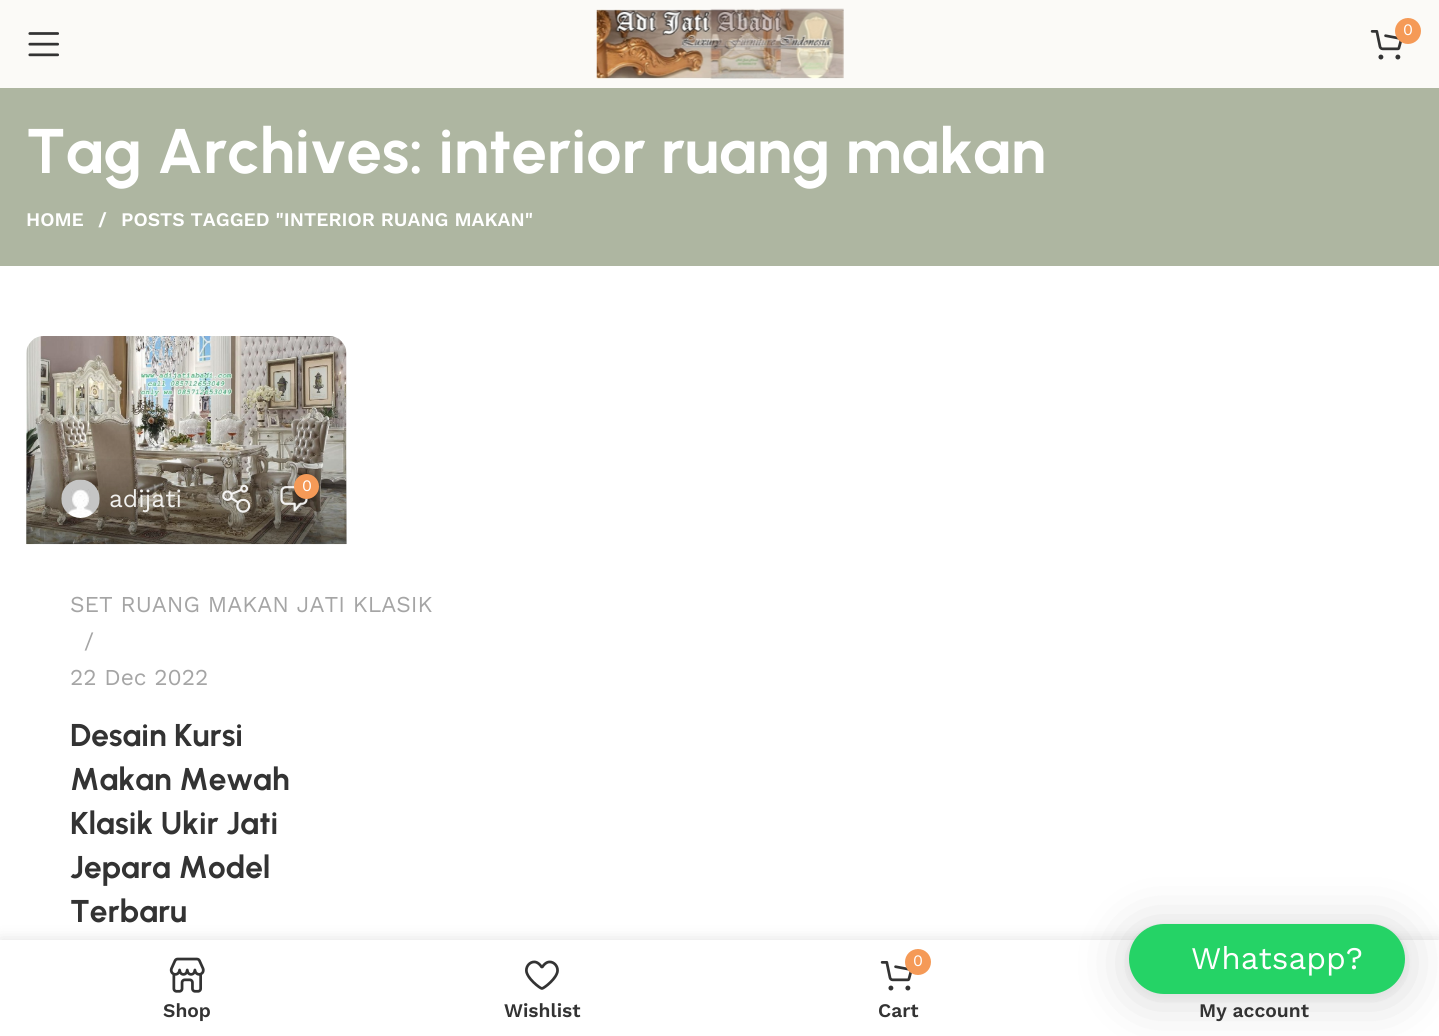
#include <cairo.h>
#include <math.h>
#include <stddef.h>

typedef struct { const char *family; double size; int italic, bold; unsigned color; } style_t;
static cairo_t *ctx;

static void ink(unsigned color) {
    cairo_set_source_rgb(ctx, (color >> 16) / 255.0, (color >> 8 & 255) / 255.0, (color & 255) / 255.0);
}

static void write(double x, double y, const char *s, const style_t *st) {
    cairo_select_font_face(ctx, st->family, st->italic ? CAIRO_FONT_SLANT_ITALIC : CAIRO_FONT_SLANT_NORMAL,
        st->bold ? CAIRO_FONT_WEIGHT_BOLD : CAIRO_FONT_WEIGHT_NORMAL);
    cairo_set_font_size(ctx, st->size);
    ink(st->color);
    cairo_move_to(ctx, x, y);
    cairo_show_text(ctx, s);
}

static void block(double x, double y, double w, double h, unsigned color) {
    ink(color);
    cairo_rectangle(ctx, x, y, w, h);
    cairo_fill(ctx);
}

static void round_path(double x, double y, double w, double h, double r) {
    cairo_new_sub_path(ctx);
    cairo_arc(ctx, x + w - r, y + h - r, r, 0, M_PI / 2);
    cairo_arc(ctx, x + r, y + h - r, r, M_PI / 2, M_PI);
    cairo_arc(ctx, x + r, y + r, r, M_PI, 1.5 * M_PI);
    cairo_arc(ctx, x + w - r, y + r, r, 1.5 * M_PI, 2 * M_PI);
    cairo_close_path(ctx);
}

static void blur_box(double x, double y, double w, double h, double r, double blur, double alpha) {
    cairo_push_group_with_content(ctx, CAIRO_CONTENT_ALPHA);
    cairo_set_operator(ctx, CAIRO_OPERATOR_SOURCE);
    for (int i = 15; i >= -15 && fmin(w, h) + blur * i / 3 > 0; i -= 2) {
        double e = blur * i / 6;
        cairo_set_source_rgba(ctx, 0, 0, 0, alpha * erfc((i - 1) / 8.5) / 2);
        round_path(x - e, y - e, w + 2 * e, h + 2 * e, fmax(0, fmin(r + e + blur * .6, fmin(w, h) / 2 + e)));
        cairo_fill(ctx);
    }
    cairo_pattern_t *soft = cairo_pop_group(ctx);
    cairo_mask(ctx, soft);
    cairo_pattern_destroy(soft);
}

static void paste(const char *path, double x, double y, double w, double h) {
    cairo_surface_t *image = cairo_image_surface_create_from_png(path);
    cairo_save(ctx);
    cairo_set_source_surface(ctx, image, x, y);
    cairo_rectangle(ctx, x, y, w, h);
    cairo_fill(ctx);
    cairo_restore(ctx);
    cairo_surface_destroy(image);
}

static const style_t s1 = {"Work Sans", 16, 0, 0, 0xffffff};
static const style_t s2 = {"Urbanist", 63, 0, 1, 0xffffff};
static const style_t s3 = {"Work Sans SemiBold", 19.25, 0, 0, 0xffffff};
static const style_t s4 = {"Work Sans", 24.5, 0, 0, 0xf1f0ee};
static const style_t s5 = {"Work Sans", 22.75, 0, 0, 0xa5a5a5};
static const style_t s6 = {"Urbanist", 31.5, 0, 1, 0x333333};
static const style_t s7 = {"Work Sans", 31.5, 0, 0, 0xffffff};
static const style_t s8 = {"Work Sans SemiBold", 19.25, 0, 0, 0x333333};

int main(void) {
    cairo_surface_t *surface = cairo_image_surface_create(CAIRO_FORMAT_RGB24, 1439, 1036);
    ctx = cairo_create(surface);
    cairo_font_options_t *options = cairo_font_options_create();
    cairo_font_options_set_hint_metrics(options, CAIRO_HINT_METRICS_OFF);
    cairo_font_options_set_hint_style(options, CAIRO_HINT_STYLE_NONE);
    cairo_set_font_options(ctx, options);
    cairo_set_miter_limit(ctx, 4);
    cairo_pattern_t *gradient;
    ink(0xffffff);
    cairo_paint(ctx);
    block(0, 0, 1439, 88, 0xfbfaf7);
    paste("pic1.png", 596, 8, 248, 71);
    paste("pic2.png", 1370, 30, 32, 30);
    ink(0xf59a57);
    cairo_arc(ctx, 1408, 31, 13, 0, 2 * M_PI);
    cairo_fill(ctx);
    write(1403, 35, "0", &s1);
    paste("pic3.png", 28, 32, 31, 25);
    block(0, 88, 1439, 178, 0xaeb6a1);
    write(26, 173, "Tag Archives: interior ruang makan", &s2);
    write(26, 226, "HOME", &s3);
    write(98, 226, "/", &s3);
    write(121, 226, "POSTS TAGGED \"INTERIOR RUANG MAKAN\"", &s3);
    paste("pic4.png", 26, 336, 321, 209);
    gradient = cairo_pattern_create_linear(186, 452, 186, 544);
    cairo_pattern_add_color_stop_rgba(gradient, 0, 0, 0, 0, 0);
    cairo_pattern_add_color_stop_rgba(gradient, 1, 0, 0, 0, 0.3);
    cairo_set_source(ctx, gradient);
    cairo_pattern_destroy(gradient);
    cairo_rectangle(ctx, 26, 459, 321, 85);
    cairo_fill(ctx);
    paste("pic5.png", 222, 484, 29, 29);
    paste("pic6.png", 280, 486, 28, 26);
    ink(0xf59a57);
    cairo_arc(ctx, 306.5, 486.5, 12.5, 0, 2 * M_PI);
    cairo_fill(ctx);
    write(302, 491, "0", &s1);
    paste("pic7.png", 61, 479, 39, 39);
    write(109, 507, "adijati", &s4);
    write(70, 612, "SET RUANG MAKAN JATI KLASIK", &s5);
    write(84, 649, "/", &s5);
    write(70, 685, "22 Dec 2022", &s5);
    write(70, 746, "Desain Kursi", &s6);
    write(70, 790, "Makan Mewah", &s6);
    write(70, 834, "Klasik Ukir Jati", &s6);
    write(70, 878, "Jepara Model", &s6);
    write(70, 922, "Terbaru", &s6);
    ink(0x000000);
    blur_box(0, 940, 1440, 96, 0, 8, 0.12);
    block(0, 940, 1439, 96, 0xffffff);
    ink(0x000000);
    blur_box(1129, 928, 276, 70, 35, 28, 0.16);
    blur_box(1129, 926, 276, 70, 35, 5, 0.06);
    ink(0x25d366);
    round_path(1129, 924, 276, 70, 35);
    cairo_fill(ctx);
    write(1191, 969, "Whatsapp?", &s7);
    paste("pic8.png", 169, 957, 36, 36);
    write(163, 1017, "Shop", &s8);
    paste("pic9.png", 525, 960, 34, 30);
    write(504, 1017, "Wishlist", &s8);
    paste("pic10.png", 880, 961, 32, 30);
    ink(0xf59a57);
    cairo_arc(ctx, 918, 962, 13, 0, 2 * M_PI);
    cairo_fill(ctx);
    write(913, 966, "0", &s1);
    write(878, 1017, "Cart", &s8);
    write(1199, 1017, "My account", &s8);
    cairo_surface_write_to_png(surface, "screenshot.png");
    cairo_font_options_destroy(options);
    cairo_destroy(ctx);
    cairo_surface_destroy(surface);
    return 0;
}
